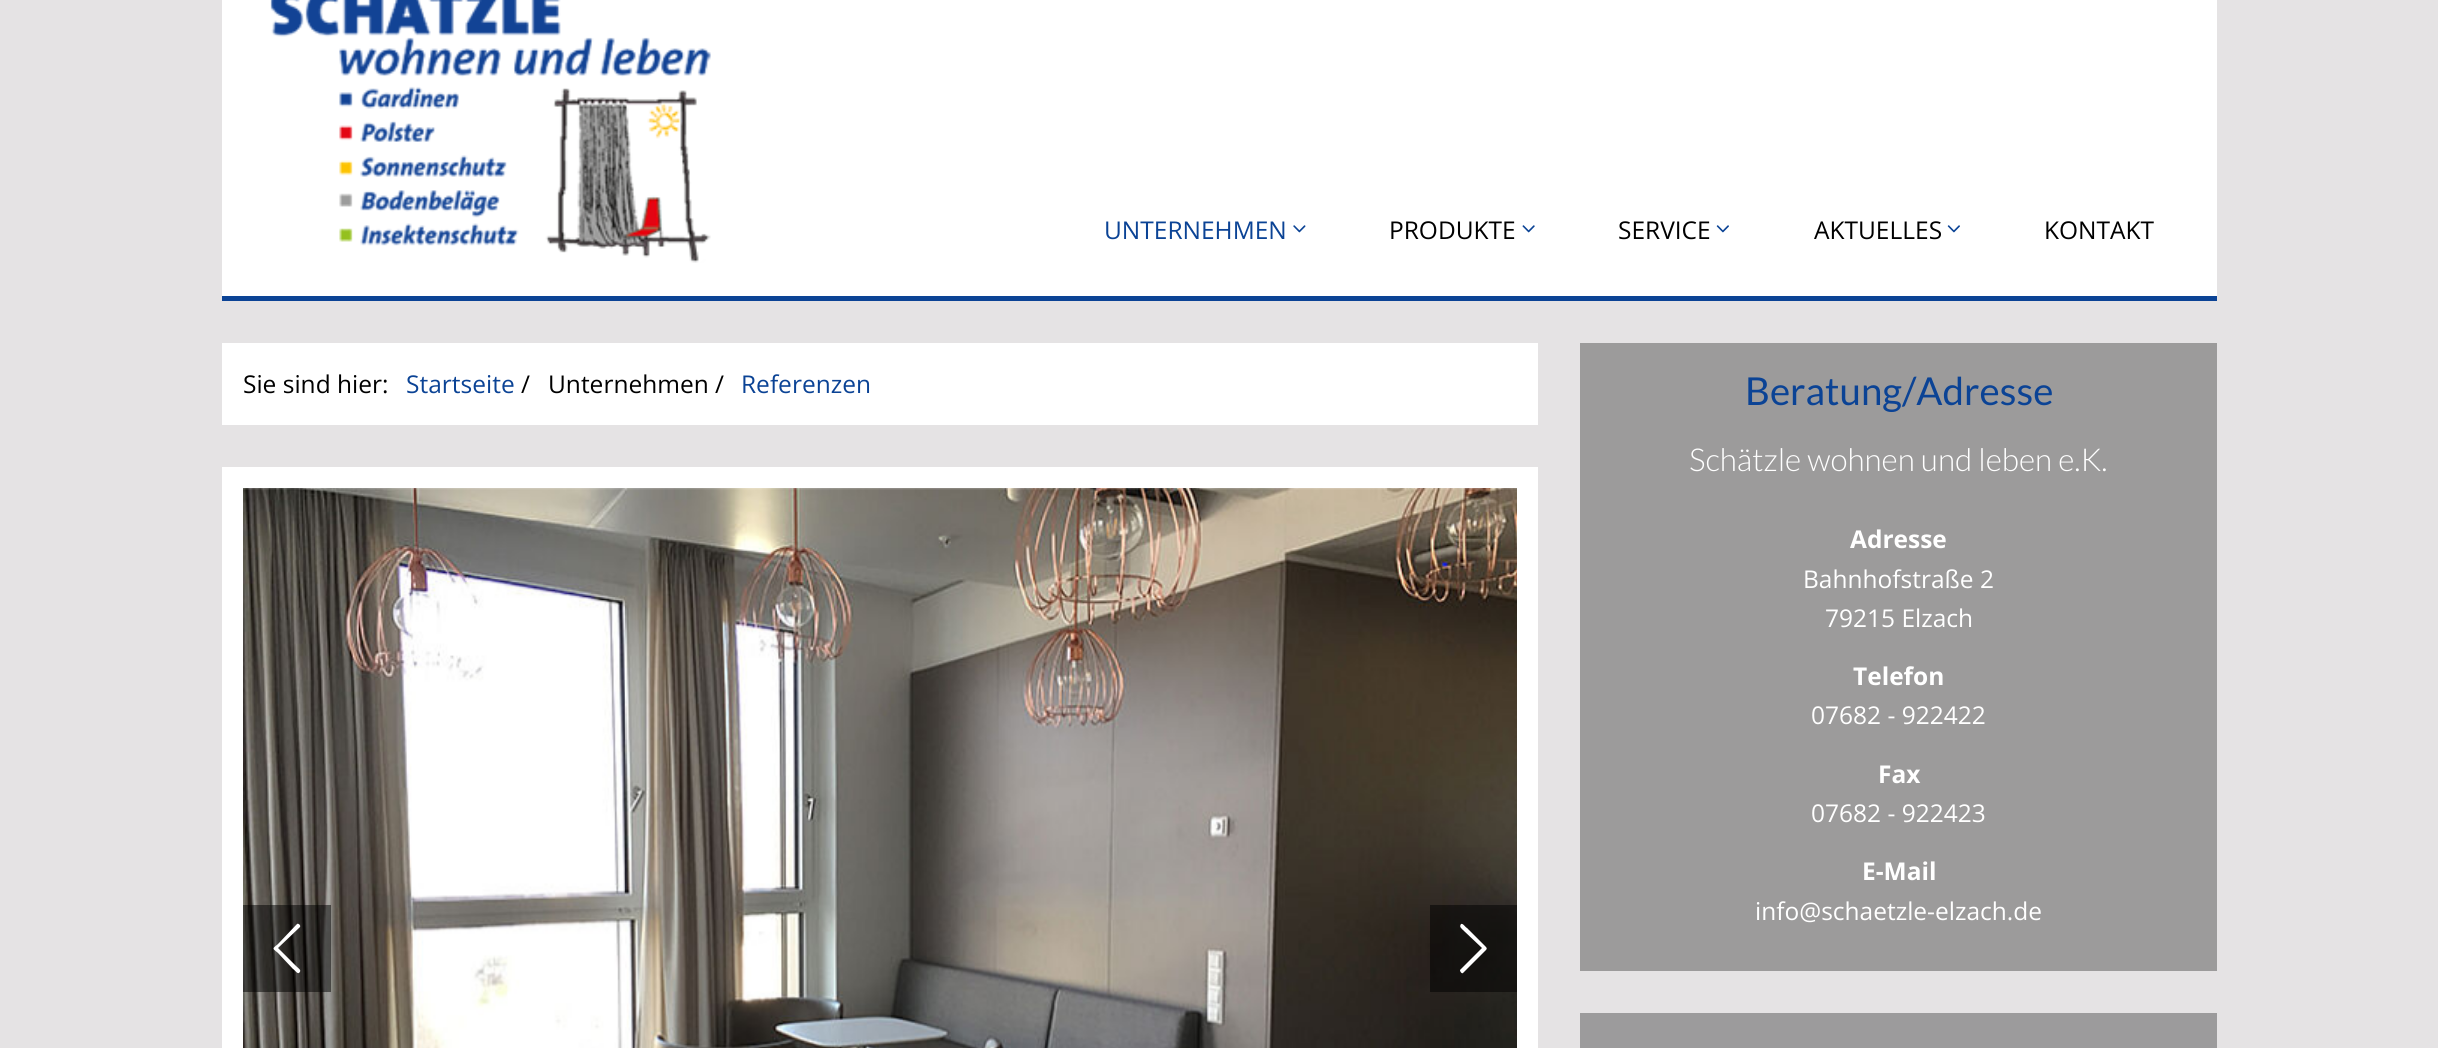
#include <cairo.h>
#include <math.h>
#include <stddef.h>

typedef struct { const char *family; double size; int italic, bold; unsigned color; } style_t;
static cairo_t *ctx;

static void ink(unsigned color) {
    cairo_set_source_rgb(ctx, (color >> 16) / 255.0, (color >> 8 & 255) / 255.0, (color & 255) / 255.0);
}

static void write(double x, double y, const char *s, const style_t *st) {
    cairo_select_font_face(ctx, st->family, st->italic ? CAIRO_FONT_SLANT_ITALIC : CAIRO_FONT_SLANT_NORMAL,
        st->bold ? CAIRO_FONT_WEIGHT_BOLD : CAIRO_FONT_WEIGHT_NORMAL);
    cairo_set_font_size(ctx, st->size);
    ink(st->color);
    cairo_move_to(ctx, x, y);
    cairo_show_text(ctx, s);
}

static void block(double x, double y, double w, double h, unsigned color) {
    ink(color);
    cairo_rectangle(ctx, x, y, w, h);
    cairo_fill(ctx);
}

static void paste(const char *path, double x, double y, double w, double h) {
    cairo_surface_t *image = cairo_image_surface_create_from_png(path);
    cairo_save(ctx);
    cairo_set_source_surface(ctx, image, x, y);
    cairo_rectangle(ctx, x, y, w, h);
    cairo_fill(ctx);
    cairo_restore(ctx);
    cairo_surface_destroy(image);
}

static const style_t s1 = {"Open Sans", 24.5, 0, 0, 0x0b4395};
static const style_t s2 = {"Open Sans", 24.5, 0, 0, 0x000000};
static const style_t s3 = {"Lato", 38.5, 0, 0, 0x0b4395};
static const style_t s4 = {"Lato Light", 31.5, 0, 0, 0xffffff};
static const style_t s5 = {"Open Sans", 24.5, 0, 1, 0xffffff};
static const style_t s6 = {"Open Sans", 24.5, 0, 0, 0xffffff};

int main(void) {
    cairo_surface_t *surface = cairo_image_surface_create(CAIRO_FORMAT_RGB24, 2438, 1048);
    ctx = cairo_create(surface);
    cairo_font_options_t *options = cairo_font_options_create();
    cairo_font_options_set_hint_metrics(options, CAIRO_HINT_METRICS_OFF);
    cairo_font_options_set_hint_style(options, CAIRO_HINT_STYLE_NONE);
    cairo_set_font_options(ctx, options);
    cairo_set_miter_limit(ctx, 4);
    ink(0xe5e3e4);
    cairo_paint(ctx);
    block(222, 0, 1995, 296, 0xffffff);
    block(222, 296, 1995, 5, 0x0b4395);
    paste("pic1.png", 270, 0, 441, 263);
    write(1104, 239, "UNTERNEHMEN", &s1);
    paste("pic2.png", 1293, 225, 13, 8);
    write(1389, 239, "PRODUKTE", &s2);
    paste("pic3.png", 1522, 225, 13, 8);
    write(1618, 239, "SERVICE", &s2);
    paste("pic4.png", 1716, 225, 13, 8);
    write(1814, 239, "AKTUELLES", &s2);
    paste("pic4.png", 1947, 225, 13, 8);
    write(2044, 239, "KONTAKT", &s2);
    block(222, 343, 1316, 82, 0xffffff);
    write(243, 393, "Sie sind hier:", &s2);
    write(406, 393, "Startseite", &s1);
    write(521, 393, "/", &s2);
    write(548, 393, "Unternehmen /", &s2);
    write(741, 393, "Referenzen", &s1);
    block(222, 467, 1316, 581, 0xffffff);
    paste("pic5.png", 243, 488, 1274, 560);
    cairo_set_source_rgba(ctx, 0, 0, 0, 0.5);
    cairo_rectangle(ctx, 243, 905, 88, 87);
    cairo_fill(ctx);
    ink(0xffffff);
    cairo_new_path(ctx);
    cairo_move_to(ctx, 299, 973);
    cairo_curve_to(ctx, 302, 970, 299, 969, 296, 966);
    cairo_line_to(ctx, 278, 948);
    cairo_line_to(ctx, 300, 927);
    cairo_curve_to(ctx, 301, 925, 298, 923, 297, 924);
    cairo_line_to(ctx, 278, 944);
    cairo_curve_to(ctx, 272, 949, 272, 948, 278, 953);
    cairo_line_to(ctx, 293, 969);
    cairo_curve_to(ctx, 295, 970, 297, 974, 299, 973);
    cairo_close_path(ctx);
    cairo_fill(ctx);
    cairo_set_source_rgba(ctx, 0, 0, 0, 0.5);
    cairo_rectangle(ctx, 1430, 905, 87, 87);
    cairo_fill(ctx);
    ink(0xffffff);
    cairo_new_path(ctx);
    cairo_move_to(ctx, 1461, 924);
    cairo_curve_to(ctx, 1459, 927, 1461, 928, 1464, 931);
    cairo_line_to(ctx, 1482, 948);
    cairo_line_to(ctx, 1460, 970);
    cairo_curve_to(ctx, 1460, 972, 1462, 974, 1463, 973);
    cairo_line_to(ctx, 1483, 953);
    cairo_curve_to(ctx, 1488, 948, 1488, 949, 1483, 944);
    cairo_line_to(ctx, 1467, 928);
    cairo_curve_to(ctx, 1465, 927, 1463, 923, 1461, 924);
    cairo_close_path(ctx);
    cairo_fill(ctx);
    block(1580, 343, 637, 628, 0x9c9b9b);
    write(1745, 405, "Beratung/Adresse", &s3);
    write(1689, 471, "Schätzle wohnen und leben e.K.", &s4);
    write(1850, 548, "Adresse", &s5);
    write(1803, 588, "Bahnhofstraße 2", &s6);
    write(1825, 627, "79215 Elzach", &s6);
    write(1853, 685, "Telefon", &s5);
    write(1811, 724, "07682 - 922422", &s6);
    write(1878, 783, "Fax", &s5);
    write(1811, 822, "07682 - 922423", &s6);
    write(1862, 880, "E-Mail", &s5);
    write(1755, 920, "info@schaetzle-elzach.de", &s6);
    block(1580, 1013, 637, 35, 0x9c9b9c);
    cairo_surface_write_to_png(surface, "screenshot.png");
    cairo_font_options_destroy(options);
    cairo_destroy(ctx);
    cairo_surface_destroy(surface);
    return 0;
}
